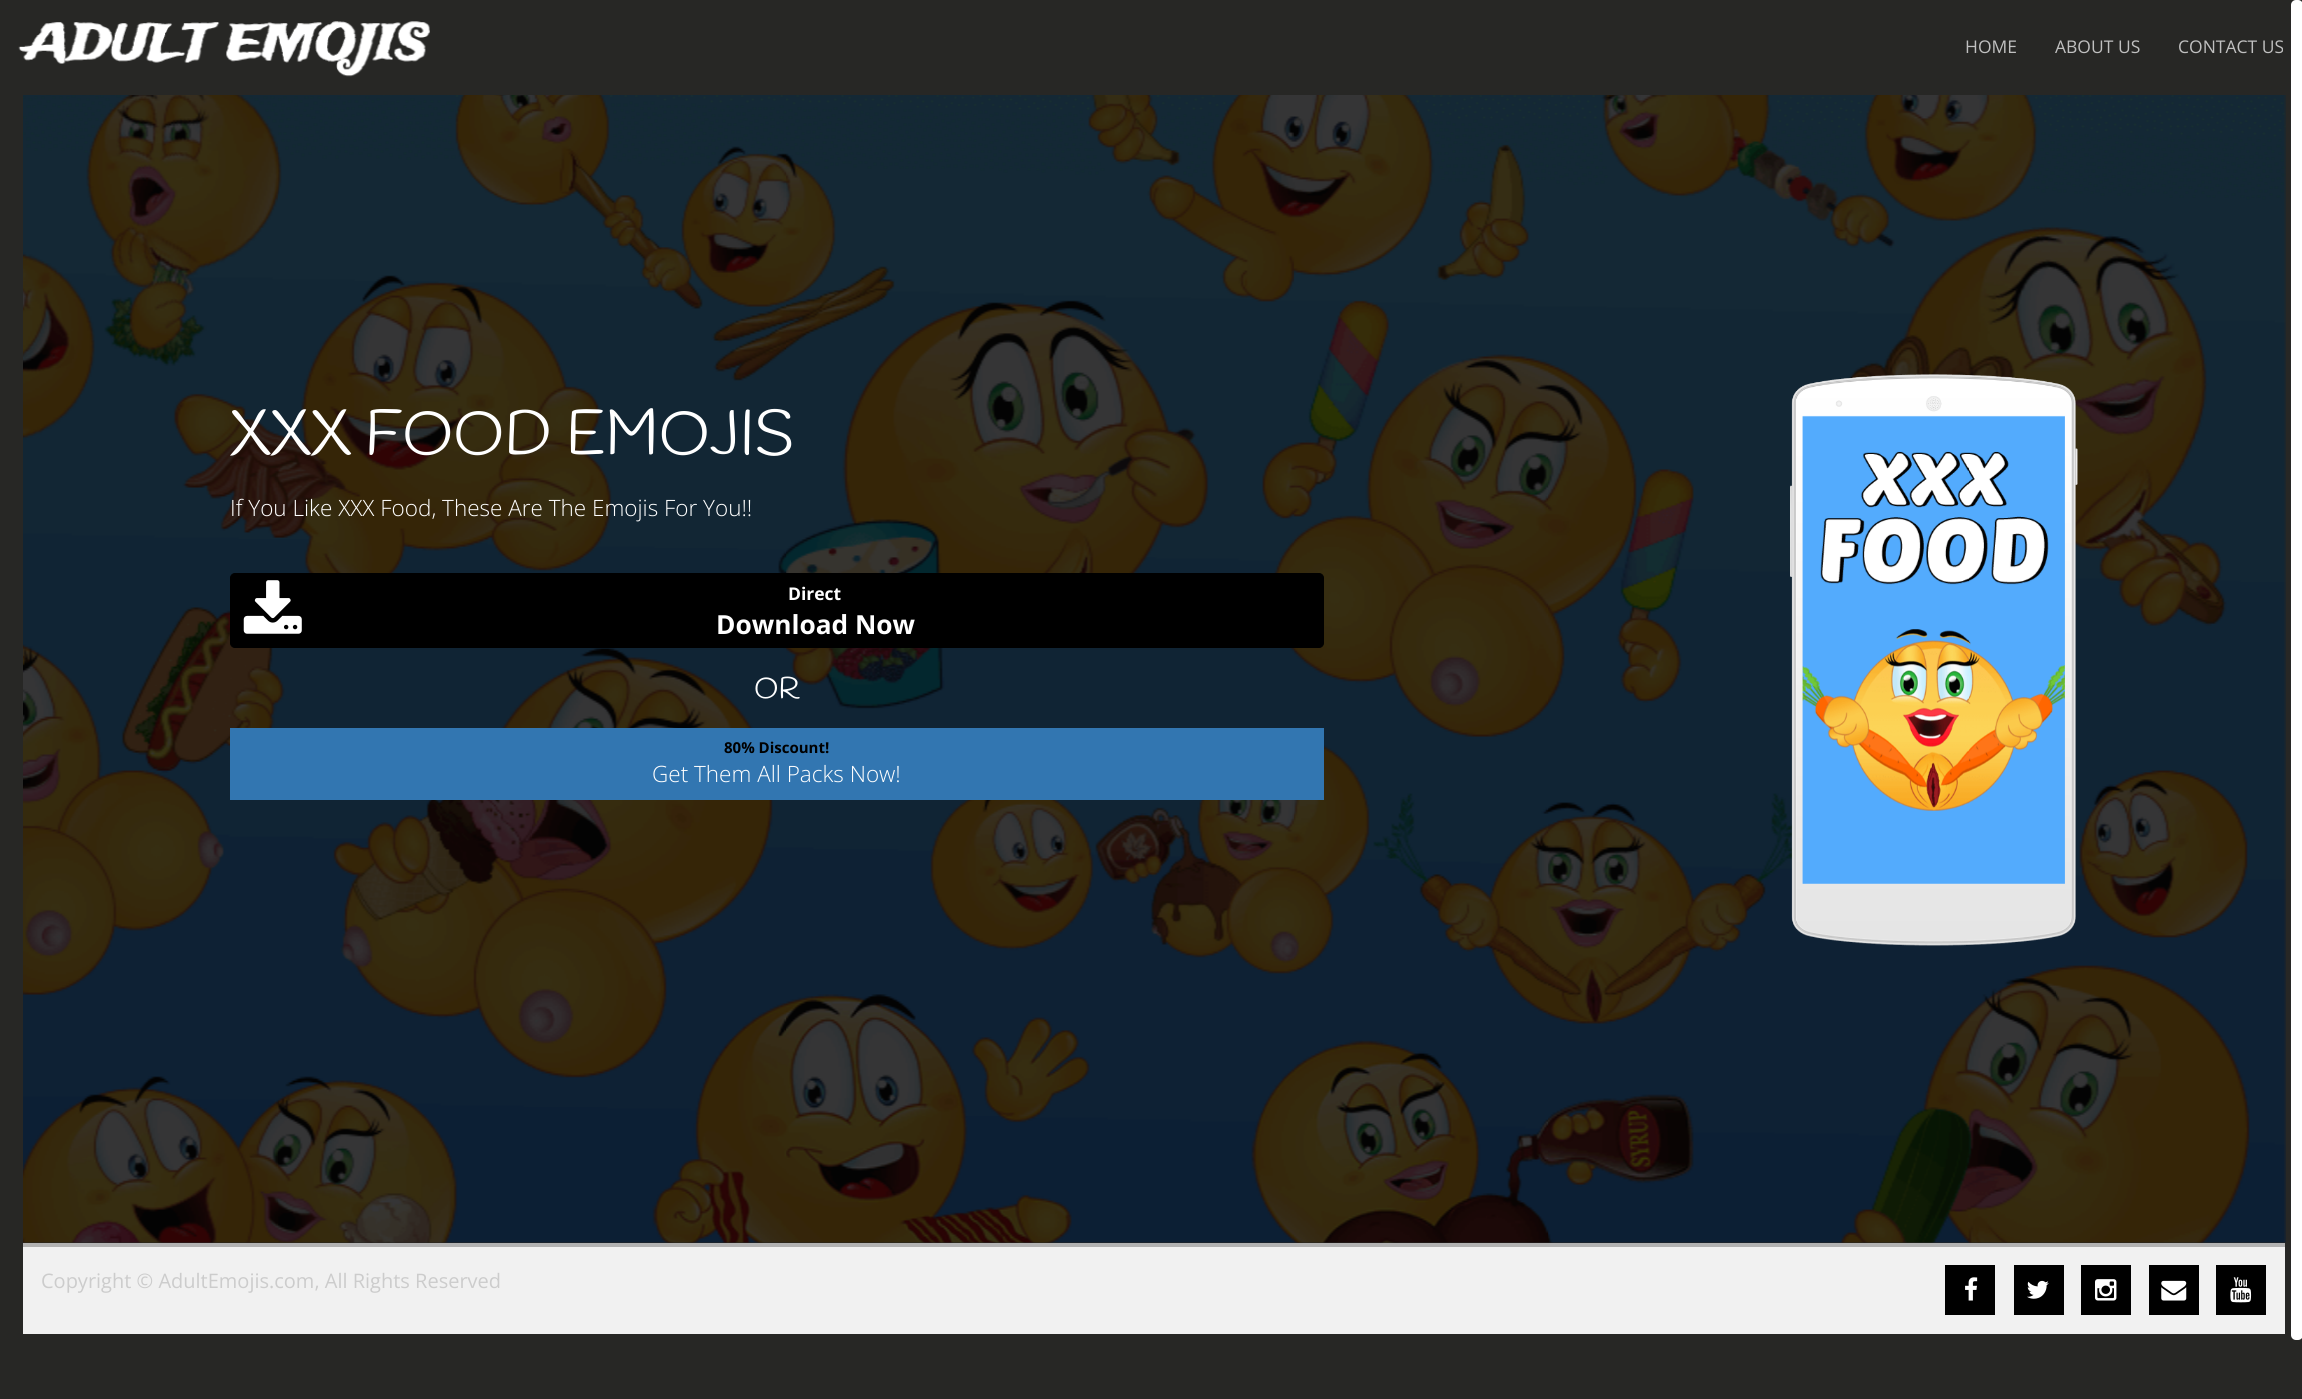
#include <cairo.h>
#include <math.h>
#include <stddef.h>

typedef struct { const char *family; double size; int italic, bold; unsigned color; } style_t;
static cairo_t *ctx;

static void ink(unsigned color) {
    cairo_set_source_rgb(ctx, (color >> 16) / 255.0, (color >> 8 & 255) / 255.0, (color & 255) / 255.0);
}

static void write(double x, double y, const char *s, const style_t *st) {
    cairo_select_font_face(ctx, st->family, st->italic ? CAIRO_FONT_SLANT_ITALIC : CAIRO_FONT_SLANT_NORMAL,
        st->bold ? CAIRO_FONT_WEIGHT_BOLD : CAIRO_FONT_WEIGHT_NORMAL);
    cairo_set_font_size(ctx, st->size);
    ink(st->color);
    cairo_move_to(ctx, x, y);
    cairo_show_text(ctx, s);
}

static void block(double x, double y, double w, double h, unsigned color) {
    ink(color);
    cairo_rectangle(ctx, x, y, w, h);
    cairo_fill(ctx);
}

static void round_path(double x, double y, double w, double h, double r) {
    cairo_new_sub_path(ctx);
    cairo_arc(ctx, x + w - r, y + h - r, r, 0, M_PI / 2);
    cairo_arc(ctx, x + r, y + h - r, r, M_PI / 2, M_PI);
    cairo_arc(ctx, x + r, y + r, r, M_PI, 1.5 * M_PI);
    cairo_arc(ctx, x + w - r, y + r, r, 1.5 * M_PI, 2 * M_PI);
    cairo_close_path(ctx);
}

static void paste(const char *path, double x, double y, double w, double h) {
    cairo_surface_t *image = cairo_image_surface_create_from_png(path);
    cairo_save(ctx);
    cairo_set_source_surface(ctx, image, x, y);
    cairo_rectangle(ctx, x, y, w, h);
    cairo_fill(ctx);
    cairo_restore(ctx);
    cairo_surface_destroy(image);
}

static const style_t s1 = {"Open Sans", 17.5, 0, 0, 0xc0c0c0};
static const style_t s2 = {"Handlee", 62.5, 0, 0, 0xffffff};
static const style_t s3 = {"Open Sans Light", 22.5, 0, 0, 0xffffff};
static const style_t s4 = {"Open Sans", 17.5, 0, 1, 0xffffff};
static const style_t s5 = {"Open Sans", 26.25, 0, 1, 0xffffff};
static const style_t s6 = {"Handlee", 30, 0, 0, 0xffffff};
static const style_t s7 = {"Open Sans", 15, 0, 1, 0x000000};
static const style_t s8 = {"Open Sans", 20, 0, 0, 0xcccccc};

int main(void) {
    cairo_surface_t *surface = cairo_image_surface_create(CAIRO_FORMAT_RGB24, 2302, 1399);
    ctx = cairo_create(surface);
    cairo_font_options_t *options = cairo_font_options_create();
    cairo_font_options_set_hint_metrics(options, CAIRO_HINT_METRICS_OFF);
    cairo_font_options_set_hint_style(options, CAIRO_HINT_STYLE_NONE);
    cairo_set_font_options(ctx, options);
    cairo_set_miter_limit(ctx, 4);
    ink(0x272725);
    cairo_paint(ctx);
    paste("pic1.png", 18, 21, 412, 56);
    write(1965, 53, "HOME", &s1);
    write(2055, 53, "ABOUT US", &s1);
    write(2178, 53, "CONTACT US", &s1);
    paste("pic2.png", 23, 95, 2263, 1148);
    write(230, 454, "XXX FOOD EMOJIS", &s2);
    write(230, 516, "If You Like XXX Food, These Are The Emojis For You!!", &s3);
    ink(0x000000);
    round_path(230.5, 573.5, 1093, 74, 4.5);
    cairo_fill_preserve(ctx);
    cairo_set_line_width(ctx, 1);
    cairo_stroke(ctx);
    paste("pic3.png", 243, 580, 59, 54);
    write(788, 600, "Direct", &s4);
    write(716, 634, "Download Now", &s5);
    write(754, 698, "OR", &s6);
    block(230, 728, 1094, 72, 0x3276b1);
    write(724, 753, "80% Discount!", &s7);
    write(652, 782, "Get Them All Packs Now!", &s3);
    paste("pic4.png", 1790, 374, 288, 572);
    paste("pic5.png", 1802, 415, 263, 469);
    block(23, 1247, 2262, 87, 0xf1f1f1);
    block(23, 1243, 2262, 4, 0xb2b2b2);
    write(41, 1288, "Copyright © AdultEmojis.com, All Rights Reserved", &s8);
    block(1945, 1265, 50, 50, 0x000000);
    paste("pic6.png", 1965, 1277, 13, 24);
    block(2014, 1265, 50, 50, 0x000000);
    paste("pic7.png", 2027, 1280, 22, 19);
    block(2081, 1265, 50, 50, 0x000000);
    paste("pic8.png", 2095, 1279, 22, 22);
    block(2149, 1265, 50, 50, 0x000000);
    paste("pic9.png", 2161, 1280, 26, 21);
    block(2216, 1265, 50, 50, 0x000000);
    paste("pic10.png", 2230, 1277, 22, 26);
    ink(0xffffff);
    round_path(2291, 0, 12, 1340, 5);
    cairo_fill(ctx);
    cairo_surface_write_to_png(surface, "screenshot.png");
    cairo_font_options_destroy(options);
    cairo_destroy(ctx);
    cairo_surface_destroy(surface);
    return 0;
}
